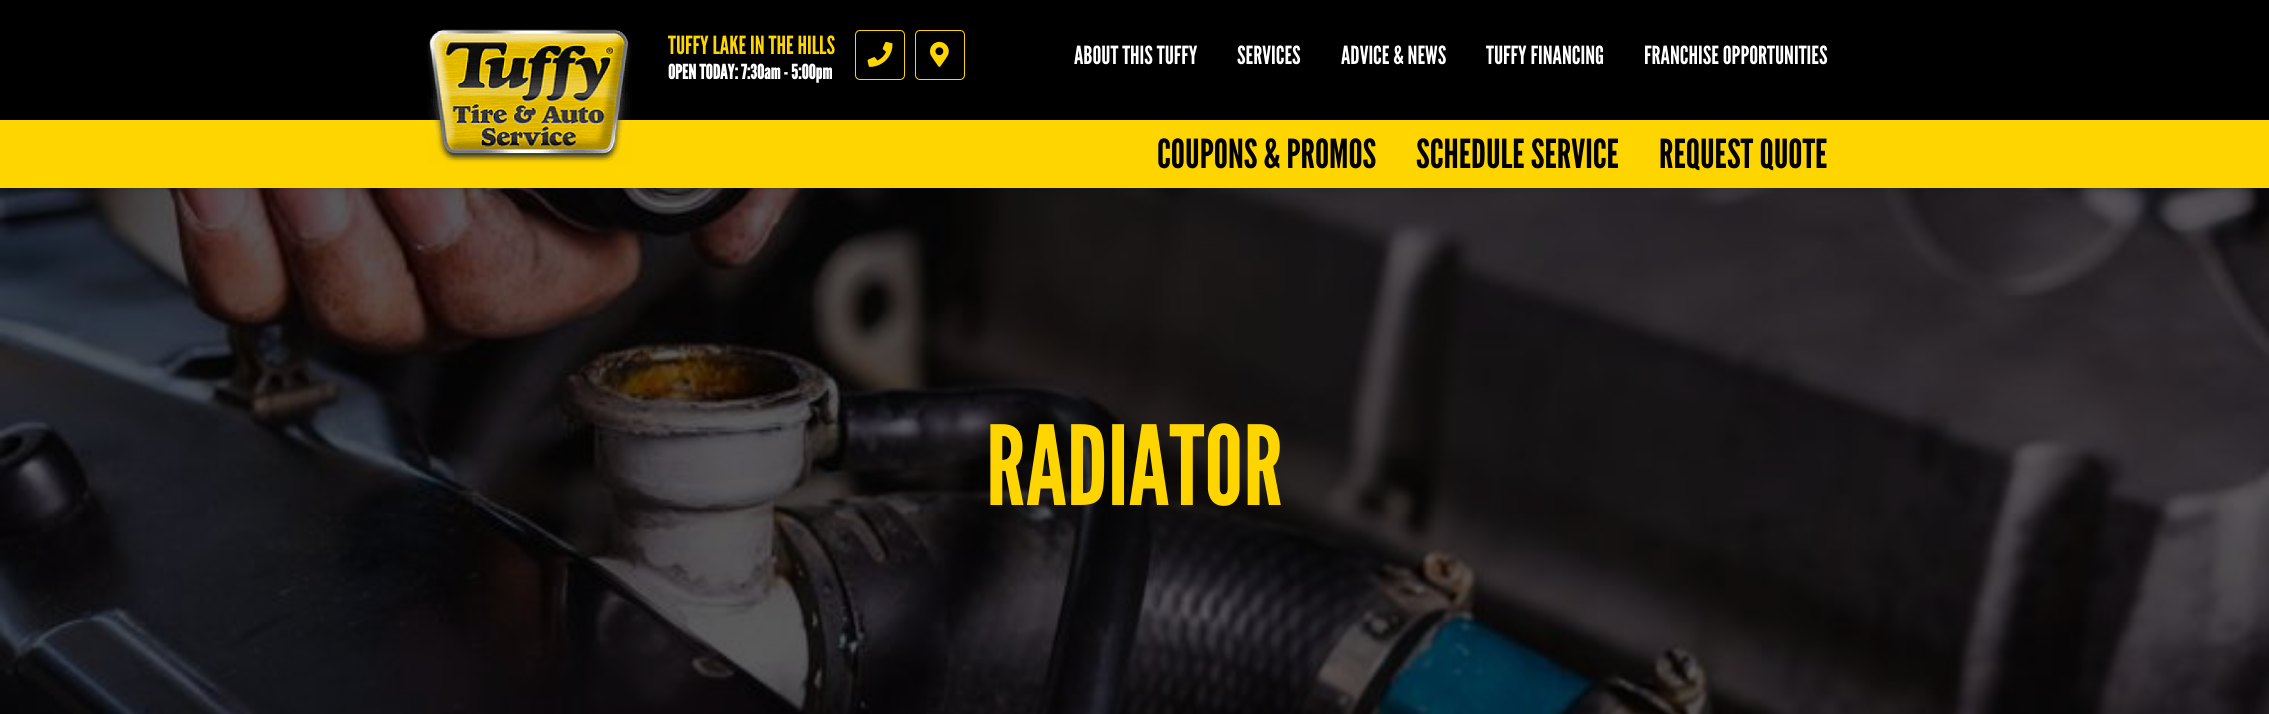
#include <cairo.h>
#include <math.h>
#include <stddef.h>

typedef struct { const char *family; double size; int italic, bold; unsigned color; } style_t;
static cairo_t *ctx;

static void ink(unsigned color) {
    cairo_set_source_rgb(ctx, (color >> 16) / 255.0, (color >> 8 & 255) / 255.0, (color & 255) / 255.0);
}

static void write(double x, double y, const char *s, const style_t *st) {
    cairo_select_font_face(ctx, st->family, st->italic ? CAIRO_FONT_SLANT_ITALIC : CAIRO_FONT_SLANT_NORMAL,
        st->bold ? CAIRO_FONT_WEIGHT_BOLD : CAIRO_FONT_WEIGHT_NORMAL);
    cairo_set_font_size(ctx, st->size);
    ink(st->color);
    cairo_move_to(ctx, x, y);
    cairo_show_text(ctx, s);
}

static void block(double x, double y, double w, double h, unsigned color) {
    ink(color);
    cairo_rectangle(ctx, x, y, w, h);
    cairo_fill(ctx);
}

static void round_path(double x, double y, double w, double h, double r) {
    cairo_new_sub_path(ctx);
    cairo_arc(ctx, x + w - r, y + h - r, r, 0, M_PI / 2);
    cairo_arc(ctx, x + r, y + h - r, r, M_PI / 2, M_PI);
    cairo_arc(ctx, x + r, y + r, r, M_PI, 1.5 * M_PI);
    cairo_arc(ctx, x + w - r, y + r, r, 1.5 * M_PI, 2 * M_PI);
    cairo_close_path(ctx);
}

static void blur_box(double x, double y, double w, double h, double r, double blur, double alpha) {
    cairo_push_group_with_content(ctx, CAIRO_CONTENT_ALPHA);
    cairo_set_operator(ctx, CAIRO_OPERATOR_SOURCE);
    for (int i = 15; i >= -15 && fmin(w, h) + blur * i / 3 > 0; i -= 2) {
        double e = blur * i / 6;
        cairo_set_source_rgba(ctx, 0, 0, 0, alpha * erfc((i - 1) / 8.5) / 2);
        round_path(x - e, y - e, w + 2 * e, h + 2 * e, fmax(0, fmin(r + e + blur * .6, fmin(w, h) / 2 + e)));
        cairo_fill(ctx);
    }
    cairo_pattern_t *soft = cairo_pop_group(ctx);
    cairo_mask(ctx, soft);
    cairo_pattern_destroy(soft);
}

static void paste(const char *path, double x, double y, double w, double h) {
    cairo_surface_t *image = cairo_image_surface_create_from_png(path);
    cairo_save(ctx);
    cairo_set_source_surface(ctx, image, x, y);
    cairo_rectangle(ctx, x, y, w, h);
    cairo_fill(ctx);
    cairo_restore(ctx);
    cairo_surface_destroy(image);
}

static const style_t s1 = {"League Gothic", 25, 0, 0, 0xffd500};
static const style_t s2 = {"League Gothic", 20, 0, 1, 0xffffff};
static const style_t s3 = {"League Gothic", 25, 0, 0, 0xffffff};
static const style_t s4 = {"League Gothic", 40, 0, 0, 0x000000};
static const style_t s5 = {"League Gothic", 110, 0, 0, 0xffd500};

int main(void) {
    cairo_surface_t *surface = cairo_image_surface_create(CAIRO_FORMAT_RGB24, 2269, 714);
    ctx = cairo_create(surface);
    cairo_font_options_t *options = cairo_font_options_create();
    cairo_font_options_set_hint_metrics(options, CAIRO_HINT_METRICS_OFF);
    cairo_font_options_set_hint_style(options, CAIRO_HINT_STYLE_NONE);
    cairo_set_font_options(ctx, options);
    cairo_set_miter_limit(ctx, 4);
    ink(0xffffff);
    cairo_paint(ctx);
    paste("pic4.png", 0, 188, 2269, 526);
    ink(0x000000);
    blur_box(0, 0, 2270, 188, 0, 3, 0.18);
    block(0, 0, 2269, 120, 0x000000);
    block(0, 120, 2269, 68, 0xffd500);
    paste("pic1.png", 427, 29, 205, 135);
    write(668, 54, "TUFFY LAKE IN THE HILLS", &s1);
    write(668, 79, "OPEN TODAY: 7:30am - 5:00pm", &s2);
    round_path(855.5, 30.5, 49, 49, 4.5);
    ink(0xffd500);
    cairo_set_line_width(ctx, 1);
    cairo_stroke(ctx);
    paste("pic2.png", 867, 41, 26, 26);
    round_path(915.5, 30.5, 49, 49, 4.5);
    cairo_stroke(ctx);
    paste("pic3.png", 930, 41, 19, 26);
    write(1074, 64, "ABOUT THIS TUFFY", &s3);
    write(1237, 64, "SERVICES", &s3);
    write(1341, 64, "ADVICE & NEWS", &s3);
    write(1486, 64, "TUFFY FINANCING", &s3);
    write(1644, 64, "FRANCHISE OPPORTUNITIES", &s3);
    write(1157, 168, "COUPONS & PROMOS", &s4);
    write(1416, 168, "SCHEDULE SERVICE", &s4);
    write(1659, 168, "REQUEST QUOTE", &s4);
    write(986, 505, "RADIATOR", &s5);
    cairo_surface_write_to_png(surface, "screenshot.png");
    cairo_font_options_destroy(options);
    cairo_destroy(ctx);
    cairo_surface_destroy(surface);
    return 0;
}
